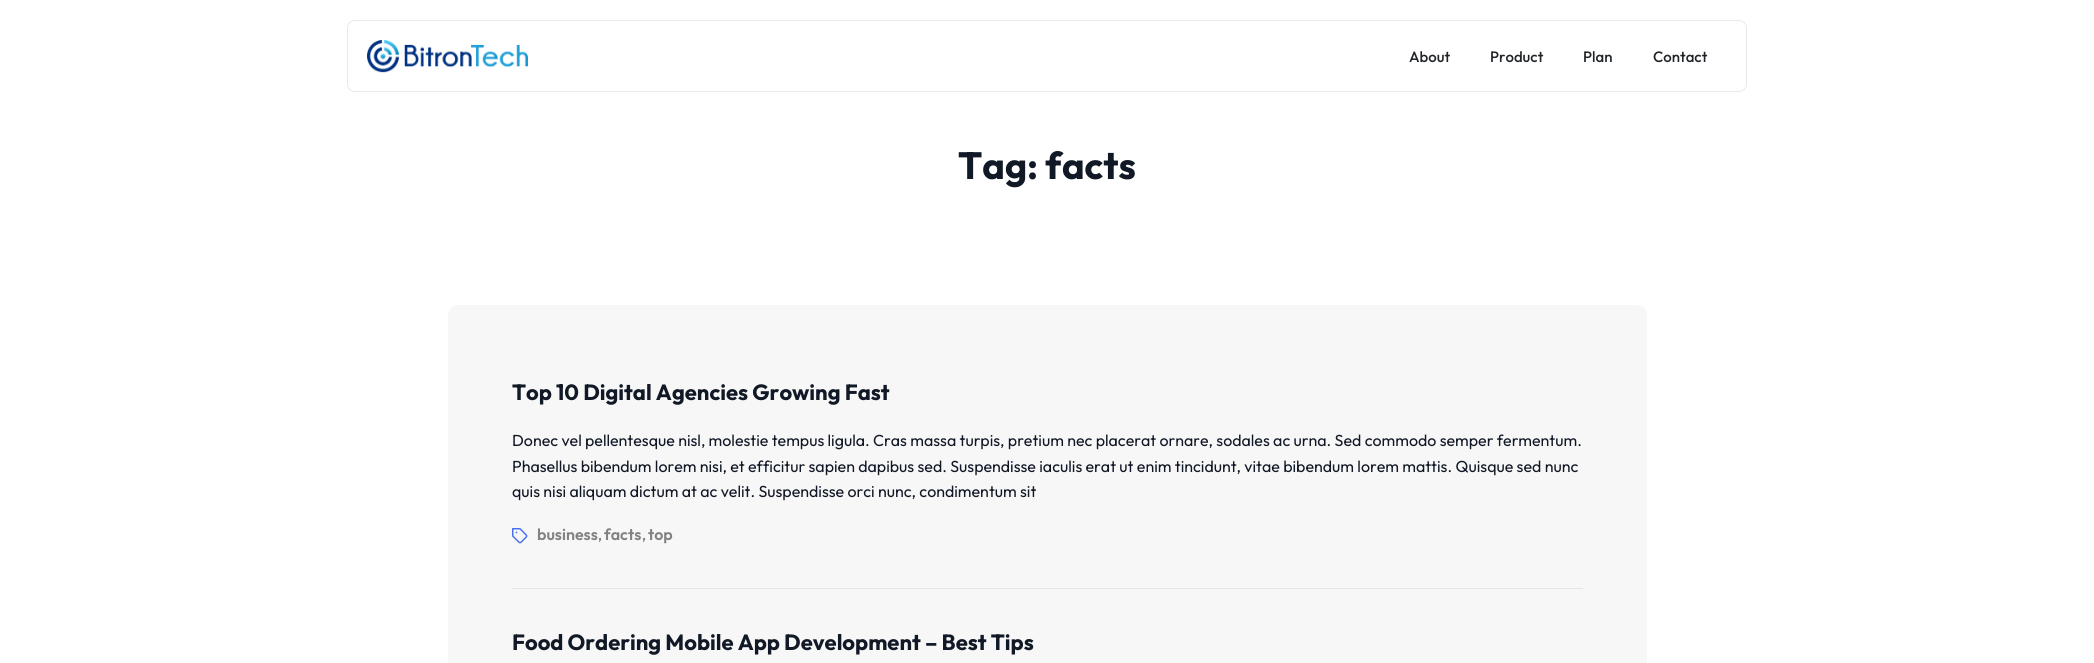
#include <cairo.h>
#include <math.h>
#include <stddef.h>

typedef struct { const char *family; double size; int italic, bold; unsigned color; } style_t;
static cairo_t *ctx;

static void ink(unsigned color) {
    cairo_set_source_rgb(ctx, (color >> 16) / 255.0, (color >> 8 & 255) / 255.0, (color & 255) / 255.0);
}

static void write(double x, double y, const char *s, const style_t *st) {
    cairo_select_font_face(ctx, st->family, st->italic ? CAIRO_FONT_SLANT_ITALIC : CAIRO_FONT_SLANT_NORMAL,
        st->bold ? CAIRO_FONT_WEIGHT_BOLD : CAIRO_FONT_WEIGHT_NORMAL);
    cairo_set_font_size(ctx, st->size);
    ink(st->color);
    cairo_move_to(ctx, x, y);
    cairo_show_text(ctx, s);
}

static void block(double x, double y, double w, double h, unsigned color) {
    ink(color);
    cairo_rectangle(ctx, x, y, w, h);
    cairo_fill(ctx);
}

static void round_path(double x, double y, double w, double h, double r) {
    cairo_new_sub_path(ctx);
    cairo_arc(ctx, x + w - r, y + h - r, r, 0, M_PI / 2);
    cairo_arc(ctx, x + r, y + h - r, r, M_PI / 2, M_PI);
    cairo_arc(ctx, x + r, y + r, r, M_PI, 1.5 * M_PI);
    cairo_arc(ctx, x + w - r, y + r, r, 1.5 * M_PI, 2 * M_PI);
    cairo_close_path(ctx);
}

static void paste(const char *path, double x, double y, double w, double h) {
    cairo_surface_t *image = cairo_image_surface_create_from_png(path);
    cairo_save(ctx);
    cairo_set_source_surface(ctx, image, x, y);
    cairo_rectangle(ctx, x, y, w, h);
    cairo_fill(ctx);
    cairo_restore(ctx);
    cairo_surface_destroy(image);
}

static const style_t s1 = {"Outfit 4 Thin", 15, 0, 0, 0x212529};
static const style_t s2 = {"Outfit Thin", 38, 0, 0, 0x111826};
static const style_t s3 = {"Outfit Thin", 22, 0, 0, 0x111826};
static const style_t s4 = {"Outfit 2 Thin", 16, 0, 0, 0x111826};
static const style_t s5 = {"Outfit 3 Thin", 16, 0, 0, 0x828282};
static const style_t s6 = {"Outfit 3 Thin", 14, 0, 0, 0x828282};

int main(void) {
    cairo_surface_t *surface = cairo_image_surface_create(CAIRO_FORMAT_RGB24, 2094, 663);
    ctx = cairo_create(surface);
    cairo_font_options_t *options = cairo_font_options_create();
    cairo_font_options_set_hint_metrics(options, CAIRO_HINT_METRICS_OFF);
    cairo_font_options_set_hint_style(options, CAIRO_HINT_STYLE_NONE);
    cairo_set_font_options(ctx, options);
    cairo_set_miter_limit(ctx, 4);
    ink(0xffffff);
    cairo_paint(ctx);
    round_path(347.5, 20.5, 1399, 71, 7.5);
    ink(0xe8e9ea);
    cairo_set_line_width(ctx, 1);
    cairo_stroke(ctx);
    paste("pic1.png", 367, 40, 161, 33);
    write(1409, 62, "About", &s1);
    write(1490, 62, "Product", &s1);
    write(1583, 62, "Plan", &s1);
    write(1653, 62, "Contact", &s1);
    write(958, 179, "Tag: facts", &s2);
    ink(0xf7f7f7);
    round_path(448, 305, 1199, 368, 10);
    cairo_fill(ctx);
    write(512, 400, "Top 10 Digital Agencies Growing Fast", &s3);
    write(512, 446, "Donec vel pellentesque nisl, molestie tempus ligula. Cras massa turpis, pretium nec placerat ornare, sodales ac urna. Sed commodo semper fermentum.", &s4);
    write(512, 472, "Phasellus bibendum lorem nisi, et efficitur sapien dapibus sed. Suspendisse iaculis erat ut enim tincidunt, vitae bibendum lorem mattis. Quisque sed nunc", &s4);
    write(512, 497, "quis nisi aliquam dictum at ac velit. Suspendisse orci nunc, condimentum sit", &s4);
    paste("pic2.png", 512, 528, 16, 16);
    write(537, 540, "business", &s5);
    write(598, 540, ",", &s6);
    write(604, 540, "facts", &s5);
    write(642, 540, ",", &s6);
    write(648, 540, "top", &s5);
    block(512, 588, 1071, 1, 0xe6e6e6);
    write(512, 650, "Food Ordering Mobile App Development – Best Tips", &s3);
    cairo_surface_write_to_png(surface, "screenshot.png");
    cairo_font_options_destroy(options);
    cairo_destroy(ctx);
    cairo_surface_destroy(surface);
    return 0;
}
